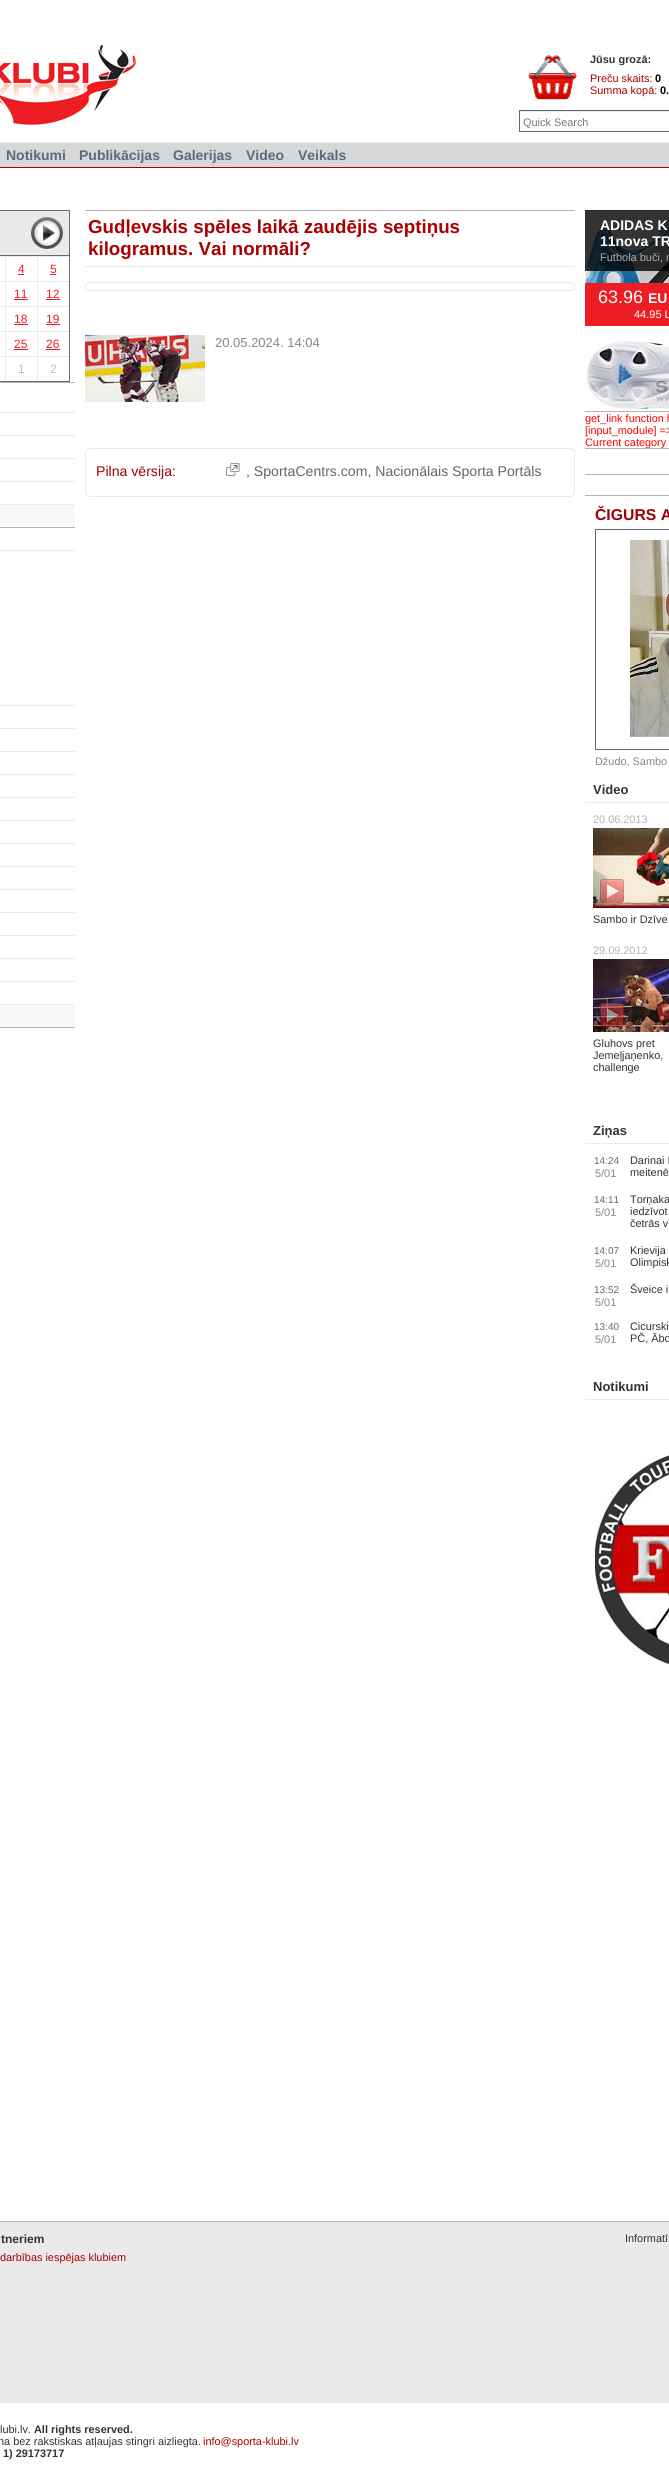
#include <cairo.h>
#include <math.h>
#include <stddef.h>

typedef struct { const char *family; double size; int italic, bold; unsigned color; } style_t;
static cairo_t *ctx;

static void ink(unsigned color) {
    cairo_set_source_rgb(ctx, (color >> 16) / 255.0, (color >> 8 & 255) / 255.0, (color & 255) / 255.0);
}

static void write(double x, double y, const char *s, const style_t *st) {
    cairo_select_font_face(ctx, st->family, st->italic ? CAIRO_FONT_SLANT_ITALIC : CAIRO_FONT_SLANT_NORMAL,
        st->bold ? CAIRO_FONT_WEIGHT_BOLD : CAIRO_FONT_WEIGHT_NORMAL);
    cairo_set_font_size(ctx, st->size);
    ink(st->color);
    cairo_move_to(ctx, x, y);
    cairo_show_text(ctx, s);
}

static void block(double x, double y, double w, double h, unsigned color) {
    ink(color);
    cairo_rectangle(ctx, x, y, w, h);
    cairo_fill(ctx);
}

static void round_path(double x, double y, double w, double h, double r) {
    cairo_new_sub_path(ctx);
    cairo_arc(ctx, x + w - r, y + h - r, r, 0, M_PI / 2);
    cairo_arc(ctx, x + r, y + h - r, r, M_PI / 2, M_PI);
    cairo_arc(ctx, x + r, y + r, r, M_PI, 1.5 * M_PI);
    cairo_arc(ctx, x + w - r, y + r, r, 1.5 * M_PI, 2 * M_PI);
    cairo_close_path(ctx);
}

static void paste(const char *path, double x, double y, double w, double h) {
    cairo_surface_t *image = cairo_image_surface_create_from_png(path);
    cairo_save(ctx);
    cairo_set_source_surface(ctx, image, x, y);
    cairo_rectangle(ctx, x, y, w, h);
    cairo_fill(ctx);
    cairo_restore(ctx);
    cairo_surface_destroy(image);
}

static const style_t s1 = {"Liberation Sans", 10.9, 0, 1, 0x333333};
static const style_t s2 = {"Liberation Sans", 10.9, 0, 0, 0xaa0000};
static const style_t s3 = {"Liberation Sans", 10.9, 0, 1, 0x000000};
static const style_t s4 = {"Liberation Sans", 10.9, 0, 0, 0x777777};
static const style_t s5 = {"Liberation Sans", 14, 0, 1, 0x5f6a77};
static const style_t s6 = {"Liberation Sans", 12, 0, 0, 0xee1d23};
static const style_t s7 = {"Liberation Sans", 12, 0, 0, 0xbdbdbd};
static const style_t s8 = {"Liberation Sans", 18.75, 0, 1, 0xaa0000};
static const style_t s9 = {"Liberation Sans", 13, 0, 0, 0x888888};
static const style_t s10 = {"Liberation Sans", 14.1, 0, 0, 0xa0000a};
static const style_t s11 = {"Liberation Sans", 14.1, 0, 0, 0x656565};
static const style_t s12 = {"Liberation Sans", 14, 0, 1, 0xffffff};
static const style_t s13 = {"Liberation Sans", 18, 0, 0, 0xffffff};
static const style_t s14 = {"Liberation Sans", 11, 0, 0, 0xffffff};
static const style_t s15 = {"Liberation Sans", 11, 0, 0, 0xaaaaaa};
static const style_t s16 = {"Liberation Sans", 10.9, 0, 0, 0xff0000};
static const style_t s17 = {"Liberation Sans", 15.75, 0, 1, 0xa0000a};
static const style_t s18 = {"Liberation Sans", 10.9, 0, 0, 0x888888};
static const style_t s19 = {"Liberation Sans", 13, 0, 1, 0x333333};
static const style_t s20 = {"Liberation Sans", 10.9, 0, 0, 0xb3b3b3};
static const style_t s21 = {"Liberation Sans", 10.9, 0, 0, 0x333333};
static const style_t s22 = {"Liberation Sans", 10, 0, 0, 0x5f6a77};
static const style_t s23 = {"Liberation Sans", 12, 0, 1, 0x333333};

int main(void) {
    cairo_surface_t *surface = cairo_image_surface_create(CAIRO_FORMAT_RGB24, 669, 2479);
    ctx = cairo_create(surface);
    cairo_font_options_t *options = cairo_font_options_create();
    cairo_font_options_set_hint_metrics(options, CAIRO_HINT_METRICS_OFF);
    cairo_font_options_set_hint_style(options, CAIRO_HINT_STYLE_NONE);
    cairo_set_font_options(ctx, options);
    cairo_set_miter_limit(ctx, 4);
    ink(0xffffff);
    cairo_paint(ctx);
    paste("pic1.png", 0, 45, 136, 80);
    cairo_rectangle(ctx, 519.5, 110.5, 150, 21);
    ink(0x5f6a77);
    cairo_set_line_width(ctx, 1);
    cairo_stroke(ctx);
    paste("pic2.png", 528, 55, 49, 46);
    write(590, 63, "Jūsu grozā:", &s1);
    write(590, 82, "Preču skaits:", &s2);
    write(655, 82, "0", &s3);
    write(590, 94, "Summa kopā:", &s2);
    write(660, 94, "0.", &s3);
    block(520, 111, 149, 1, 0xededed);
    write(523, 126, "Quick Search", &s4);
    block(0, 143, 669, 24, 0xd6d8d9);
    block(0, 142, 669, 1, 0xeeeeee);
    block(0, 167, 669, 1, 0xa0000a);
    write(6, 160, "Notikumi", &s5);
    write(79, 160, "Publikācijas", &s5);
    write(173, 160, "Galerijas", &s5);
    write(246, 160, "Video", &s5);
    write(298, 160, "Veikals", &s5);
    cairo_rectangle(ctx, -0.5, 210.5, 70, 171);
    cairo_stroke(ctx);
    block(0, 211, 69, 44, 0xeaeaea);
    block(0, 255, 69, 1, 0x5f6a77);
    paste("pic3.png", 31, 217, 32, 32);
    block(0, 256, 69, 1, 0xeaeaea);
    block(5, 256, 1, 25, 0xeaeaea);
    block(37, 256, 1, 25, 0xeaeaea);
    write(18, 273, "4", &s6);
    block(18, 274, 6, 1, 0xee1d23);
    write(50, 273, "5", &s6);
    block(50, 274, 6, 1, 0xee1d23);
    block(0, 281, 69, 1, 0xeaeaea);
    block(5, 281, 1, 25, 0xeaeaea);
    block(37, 281, 1, 25, 0xeaeaea);
    write(14, 298, "11", &s6);
    block(14, 299, 14, 1, 0xee1d23);
    write(46, 298, "12", &s6);
    block(46, 299, 14, 1, 0xee1d23);
    block(0, 306, 69, 1, 0xeaeaea);
    block(5, 306, 1, 25, 0xeaeaea);
    block(37, 306, 1, 25, 0xeaeaea);
    write(14, 323, "18", &s6);
    block(14, 324, 14, 1, 0xee1d23);
    write(46, 323, "19", &s6);
    block(46, 324, 14, 1, 0xee1d23);
    block(0, 331, 69, 1, 0xeaeaea);
    block(5, 331, 1, 25, 0xeaeaea);
    block(37, 331, 1, 25, 0xeaeaea);
    write(14, 348, "25", &s6);
    block(14, 349, 14, 1, 0xee1d23);
    write(46, 348, "26", &s6);
    block(46, 349, 14, 1, 0xee1d23);
    block(0, 356, 69, 1, 0xeaeaea);
    block(5, 356, 1, 25, 0xeaeaea);
    block(37, 356, 1, 25, 0xeaeaea);
    write(18, 373, "1", &s7);
    write(50, 373, "2", &s7);
    block(0, 382, 75, 1, 0xb3b3b3);
    block(0, 412, 75, 1, 0xeaeaea);
    block(0, 435, 75, 1, 0xeaeaea);
    block(0, 458, 75, 1, 0xeaeaea);
    block(0, 481, 75, 1, 0xeaeaea);
    block(0, 504, 75, 1, 0xeaeaea);
    block(0, 505, 75, 22, 0xf8f8f8);
    block(0, 527, 75, 1, 0xb3b3b3);
    block(0, 550, 75, 1, 0xeaeaea);
    block(0, 705, 75, 1, 0xeaeaea);
    block(0, 728, 75, 1, 0xeaeaea);
    block(0, 751, 75, 1, 0xeaeaea);
    block(0, 774, 75, 1, 0xeaeaea);
    block(0, 797, 75, 1, 0xeaeaea);
    block(0, 820, 75, 1, 0xeaeaea);
    block(0, 843, 75, 1, 0xeaeaea);
    block(0, 866, 75, 1, 0xeaeaea);
    block(0, 889, 75, 1, 0xeaeaea);
    block(0, 912, 75, 1, 0xeaeaea);
    block(0, 935, 75, 1, 0xeaeaea);
    block(0, 958, 75, 1, 0xeaeaea);
    block(0, 981, 75, 1, 0xeaeaea);
    block(0, 1004, 75, 1, 0xeaeaea);
    block(0, 1005, 75, 22, 0xf8f8f8);
    block(0, 1027, 75, 1, 0xb3b3b3);
    block(85, 210, 490, 1, 0xb3b3b3);
    block(85, 266, 490, 1, 0xeaeaea);
    write(88, 233, "Gudļevskis spēles laikā zaudējis septiņus", &s8);
    write(88, 255, "kilogramus. Vai normāli?", &s8);
    round_path(85.5, 282.5, 489, 8, 4);
    ink(0xeaeaea);
    cairo_stroke(ctx);
    paste("pic4.png", 85, 335, 120, 67);
    write(215, 347, "20.05.2024. 14:04", &s9);
    round_path(85.5, 448.5, 489, 48, 4.5);
    ink(0xeaeaea);
    cairo_stroke(ctx);
    write(96, 476, "Pilna vērsija:", &s10);
    paste("pic5.png", 226, 463, 14, 13);
    write(246, 476, ", SportaCentrs.com, Nacionālais Sporta Portāls", &s11);
    paste("pic6.png", 585, 213, 84, 198);
    block(585, 210, 84, 1, 0xb3b3b3);
    cairo_set_source_rgba(ctx, 0, 0, 0, 0.8);
    cairo_rectangle(ctx, 585, 210, 84, 61);
    cairo_fill(ctx);
    write(600, 230, "ADIDAS K", &s12);
    write(600, 246, "11nova TR", &s12);
    block(585, 283, 84, 43, 0xee1d23);
    write(598, 303, "63.96", &s13);
    write(648, 303, "EU", &s12);
    write(634, 318, "44.95 L", &s14);
    write(600, 261, "Futbola buči, n", &s15);
    block(585, 411, 84, 1, 0xb3b3b3);
    write(585, 422, "get_link function h", &s16);
    write(585, 434, "[input_module] =>", &s16);
    block(585, 448, 84, 1, 0xb3b3b3);
    write(585, 446, "Current category", &s16);
    block(585, 474, 84, 1, 0xb3b3b3);
    block(585, 495, 84, 1, 0xb3b3b3);
    write(595, 520, "ČIGURS A", &s17);
    cairo_rectangle(ctx, 595.5, 529.5, 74, 220);
    ink(0x5f6a77);
    cairo_stroke(ctx);
    paste("pic7.png", 630, 540, 39, 197);
    write(595, 765, "Džudo, Sambo", &s18);
    block(585, 802, 84, 1, 0xeaeaea);
    write(593, 794, "Video", &s19);
    write(593, 823, "20.06.2013", &s20);
    paste("pic8.png", 593, 828, 76, 80);
    paste("pic9.png", 600, 879, 24, 24);
    write(593, 923, "Sambo ir Dzīve", &s21);
    write(593, 954, "29.09.2012", &s20);
    paste("pic10.png", 593, 959, 76, 73);
    paste("pic11.png", 600, 1003, 24, 24);
    write(593, 1047, "Gluhovs pret", &s21);
    write(593, 1059, "Jemeļjaņenko,", &s21);
    write(593, 1071, "challenge", &s21);
    block(585, 1143, 84, 1, 0xeaeaea);
    write(593, 1135, "Ziņas", &s19);
    write(594, 1164, "14:24", &s22);
    write(595, 1177, "5/01", &s18);
    write(630, 1164, "Darinai I", &s21);
    write(630, 1176, "meitenē", &s21);
    write(594, 1203, "14:11", &s22);
    write(595, 1216, "5/01", &s18);
    write(630, 1203, "Torņaka", &s21);
    write(630, 1215, "iedzīvot", &s21);
    write(630, 1227, "četrās vi", &s21);
    write(594, 1254, "14:07", &s22);
    write(595, 1267, "5/01", &s18);
    write(630, 1254, "Krievija", &s21);
    write(630, 1266, "Olimpisk", &s21);
    write(594, 1293, "13:52", &s22);
    write(595, 1306, "5/01", &s18);
    write(630, 1293, "Šveice i", &s21);
    write(594, 1330, "13:40", &s22);
    write(595, 1343, "5/01", &s18);
    write(630, 1330, "Cicurski", &s21);
    write(630, 1342, "PČ, Ābo", &s21);
    block(585, 1399, 84, 1, 0xeaeaea);
    write(593, 1391, "Notikumi", &s19);
    paste("pic12.png", 595, 1452, 74, 213);
    block(0, 2222, 669, 181, 0xeaeaea);
    block(0, 2221, 669, 1, 0xb3b3b3);
    write(1, 2243, "tneriem", &s23);
    write(0, 2261, "darbības iespējas klubiem", &s2);
    write(625, 2242, "Informatī", &s21);
    write(0, 2433, "lubi.lv.", &s21);
    write(34, 2433, "All rights reserved.", &s1);
    write(-2, 2445, "na bez rakstiskas atļaujas stingri aizliegta.", &s21);
    write(203, 2445, "info@sporta-klubi.lv", &s2);
    write(3, 2457, "1) 29173717", &s1);
    cairo_surface_write_to_png(surface, "screenshot.png");
    cairo_font_options_destroy(options);
    cairo_destroy(ctx);
    cairo_surface_destroy(surface);
    return 0;
}
